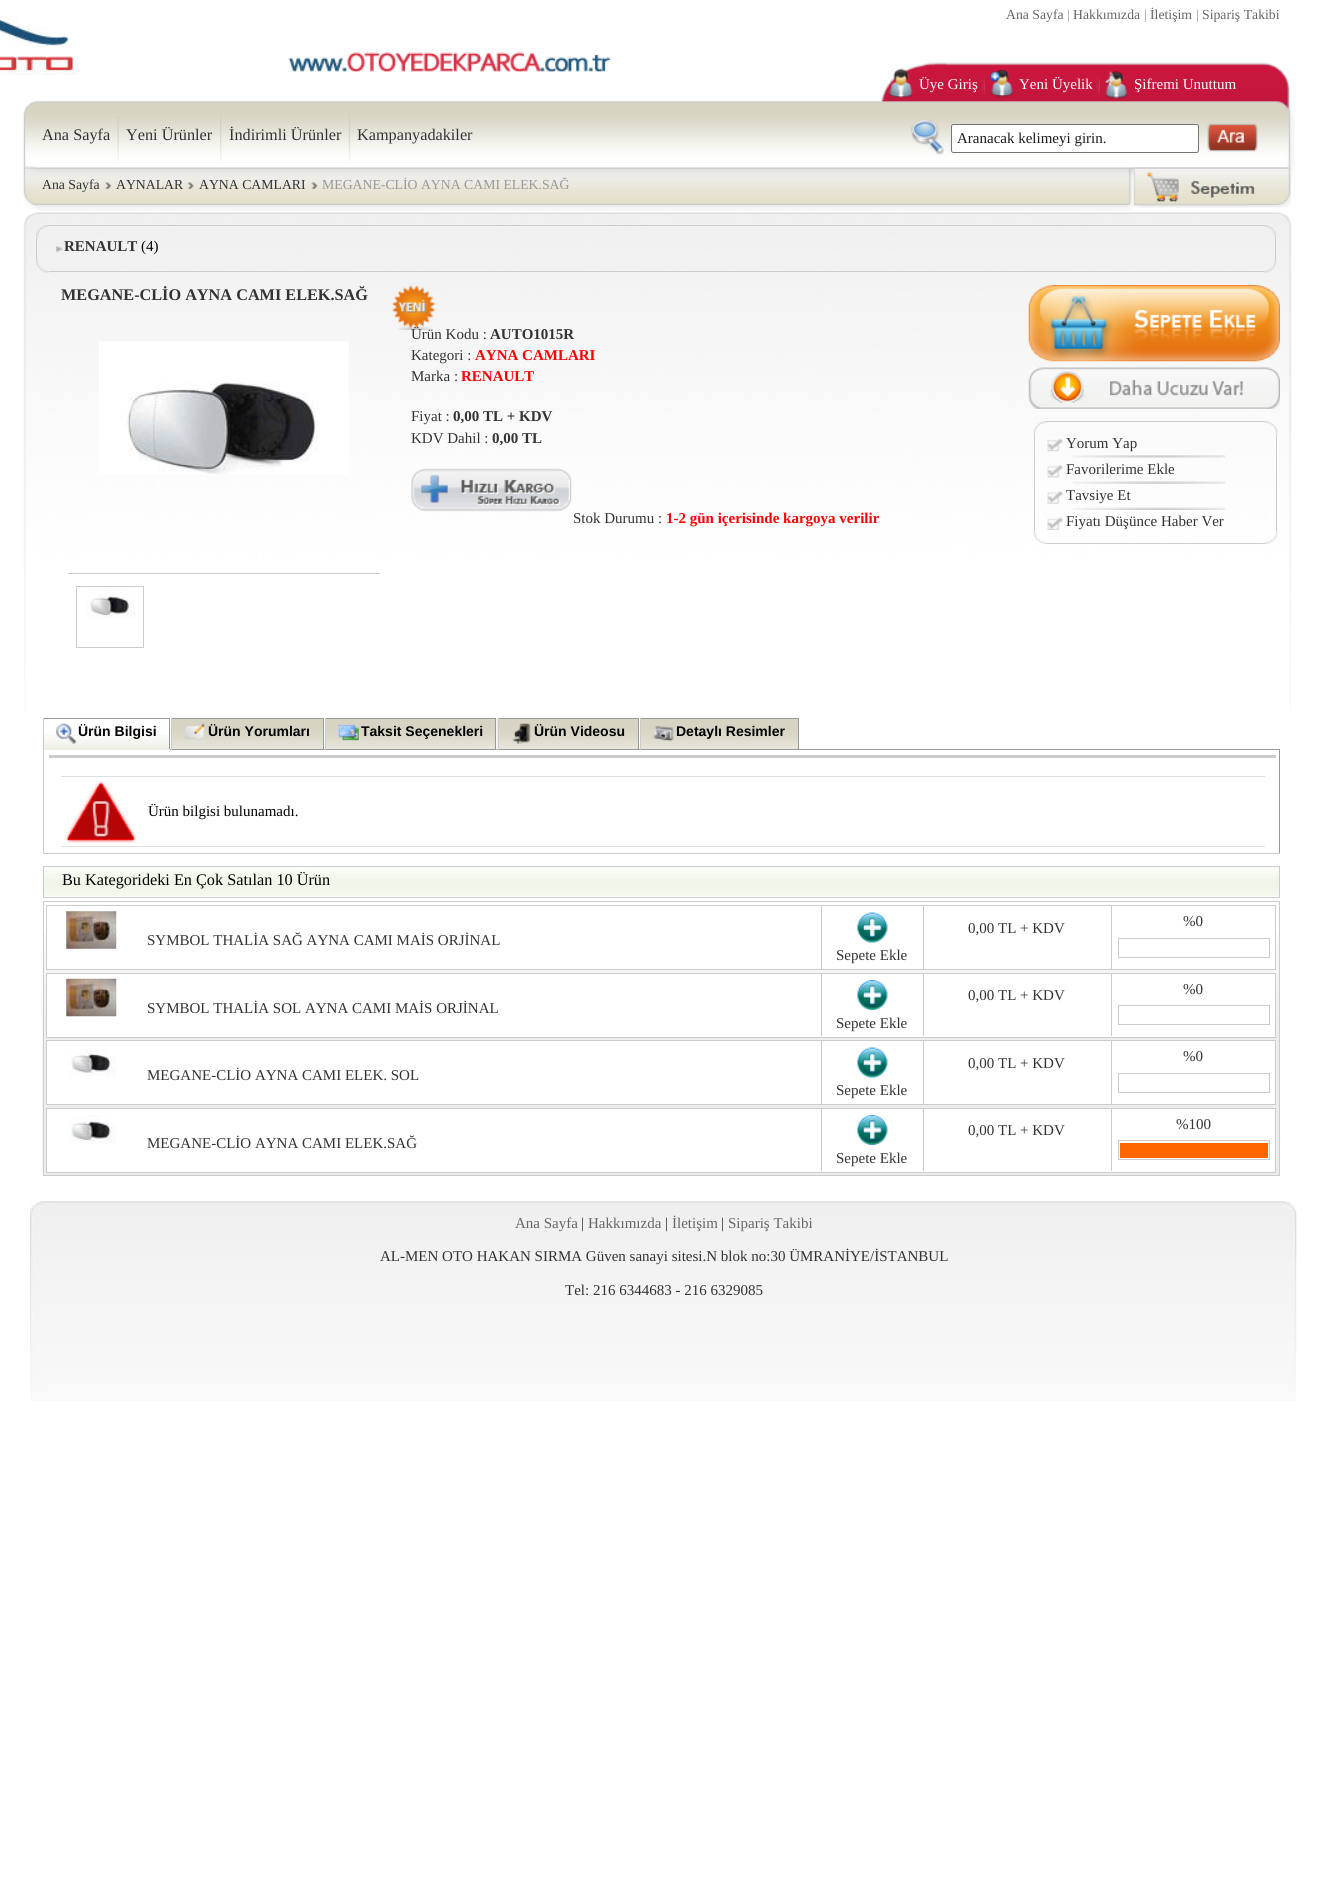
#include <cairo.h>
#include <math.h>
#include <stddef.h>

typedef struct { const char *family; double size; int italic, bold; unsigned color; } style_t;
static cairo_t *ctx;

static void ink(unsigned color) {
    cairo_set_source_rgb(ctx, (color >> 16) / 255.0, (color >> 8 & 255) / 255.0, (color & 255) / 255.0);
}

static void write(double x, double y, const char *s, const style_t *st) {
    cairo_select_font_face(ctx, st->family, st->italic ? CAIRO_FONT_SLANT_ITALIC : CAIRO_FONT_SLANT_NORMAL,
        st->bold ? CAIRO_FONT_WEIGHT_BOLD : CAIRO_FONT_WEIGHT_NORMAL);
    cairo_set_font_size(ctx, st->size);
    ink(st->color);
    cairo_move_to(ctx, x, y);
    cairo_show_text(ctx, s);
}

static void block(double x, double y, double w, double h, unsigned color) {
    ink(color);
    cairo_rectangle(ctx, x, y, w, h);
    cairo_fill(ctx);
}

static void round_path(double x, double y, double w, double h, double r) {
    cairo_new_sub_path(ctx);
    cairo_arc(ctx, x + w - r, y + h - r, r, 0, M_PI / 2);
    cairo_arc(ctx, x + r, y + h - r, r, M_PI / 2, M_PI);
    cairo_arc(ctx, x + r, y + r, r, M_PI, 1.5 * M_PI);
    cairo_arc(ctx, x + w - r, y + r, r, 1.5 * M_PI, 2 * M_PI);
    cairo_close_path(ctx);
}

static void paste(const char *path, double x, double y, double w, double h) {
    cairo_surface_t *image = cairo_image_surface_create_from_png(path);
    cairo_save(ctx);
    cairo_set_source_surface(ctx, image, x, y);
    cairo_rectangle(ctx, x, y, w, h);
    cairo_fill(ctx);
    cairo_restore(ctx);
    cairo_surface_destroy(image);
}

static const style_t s1 = {"Liberation Serif", 13.75, 0, 0, 0x666666};
static const style_t s2 = {"Liberation Serif", 13.75, 0, 0, 0x999999};
static const style_t s3 = {"Liberation Serif", 16.25, 0, 0, 0x333333};
static const style_t s4 = {"Liberation Serif", 15, 0, 0, 0xffffff};
static const style_t s5 = {"Liberation Serif", 15, 0, 0, 0x1c1c1c};
static const style_t s6 = {"Liberation Serif", 13.75, 0, 0, 0x333333};
static const style_t s7 = {"Liberation Serif", 15, 0, 1, 0x333333};
static const style_t s8 = {"Liberation Serif", 15, 0, 0, 0x000000};
static const style_t s9 = {"Liberation Serif", 16.25, 0, 1, 0x333333};
static const style_t s10 = {"Liberation Serif", 15, 0, 0, 0x333333};
static const style_t s11 = {"Liberation Serif", 15, 0, 1, 0xff0000};
static const style_t s12 = {"Liberation Sans", 14, 0, 1, 0x000000};
static const style_t s13 = {"Liberation Serif", 16.25, 0, 0, 0x000000};
static const style_t s14 = {"Liberation Serif", 15, 0, 0, 0x666666};

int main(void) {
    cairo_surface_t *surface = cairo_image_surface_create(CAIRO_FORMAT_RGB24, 1321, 1904);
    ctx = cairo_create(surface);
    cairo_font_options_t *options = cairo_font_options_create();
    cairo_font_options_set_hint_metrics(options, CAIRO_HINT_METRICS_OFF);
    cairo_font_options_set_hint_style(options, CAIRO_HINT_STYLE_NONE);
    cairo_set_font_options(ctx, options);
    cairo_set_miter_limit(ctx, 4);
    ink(0xffffff);
    cairo_paint(ctx);
    write(1006, 19, "Ana Sayfa", &s1);
    write(1067, 19, "|", &s2);
    write(1073, 19, "Hakkımızda", &s1);
    write(1144, 19, "|", &s2);
    write(1150, 19, "İletişim", &s1);
    write(1196, 19, "|", &s2);
    write(1202, 19, "Sipariş Takibi", &s1);
    paste("pic3.png", 23, 62, 1272, 149);
    paste("pic1.png", 0, 16, 79, 59);
    paste("pic2.png", 288, 52, 323, 20);
    write(42, 140, "Ana Sayfa", &s3);
    paste("pic4.png", 117, 115, 2, 47);
    write(126, 140, "Yeni Ürünler", &s3);
    paste("pic5.png", 220, 113, 2, 49);
    write(229, 140, "İndirimli Ürünler", &s3);
    paste("pic6.png", 348, 114, 3, 48);
    write(357, 140, "Kampanyadakiler", &s3);
    paste("pic7.png", 888, 68, 25, 30);
    write(919, 89, "Üye Giriş", &s4);
    paste("pic8.png", 981, 77, 4, 18);
    paste("pic9.png", 989, 69, 25, 29);
    write(1019, 89, "Yeni Üyelik", &s4);
    paste("pic8.png", 1096, 77, 4, 18);
    paste("pic10.png", 1104, 71, 24, 28);
    write(1134, 89, "Şifremi Unuttum", &s4);
    paste("pic11.png", 911, 119, 33, 36);
    round_path(951.5, 124.5, 247, 28, 2);
    cairo_fill_preserve(ctx);
    ink(0x767676);
    cairo_set_line_width(ctx, 1);
    cairo_stroke(ctx);
    write(957, 143, "Aranacak kelimeyi girin.", &s5);
    paste("pic12.png", 1207, 123, 51, 29);
    write(42, 189, "Ana Sayfa", &s6);
    paste("pic13.png", 105, 182, 7, 7);
    write(116, 189, "AYNALAR", &s6);
    paste("pic14.png", 187, 182, 7, 7);
    write(199, 189, "AYNA CAMLARI", &s6);
    paste("pic15.png", 311, 182, 7, 7);
    write(322, 189, "MEGANE-CLİO AYNA CAMI ELEK.SAĞ", &s2);
    paste("pic16.png", 1133, 167, 159, 41);
    paste("pic17.png", 23, 212, 1269, 501);
    paste("pic18.png", 36, 225, 13, 13);
    block(49, 225, 1215, 1, 0xcccccc);
    paste("pic19.png", 1264, 225, 13, 13);
    block(1275, 238, 1, 22, 0xcccccc);
    block(36, 238, 1, 22, 0xcccccc);
    paste("pic20.png", 56, 246, 7, 7);
    write(64, 251, "RENAULT", &s7);
    write(141, 251, "(4)", &s8);
    paste("pic21.png", 36, 260, 13, 13);
    block(49, 271, 1215, 1, 0xcccccc);
    paste("pic22.png", 1263, 260, 14, 13);
    write(61, 300, "MEGANE-CLİO AYNA CAMI ELEK.SAĞ", &s9);
    paste("pic23.png", 392, 285, 43, 45);
    block(68, 573, 312, 1, 0xcccccc);
    paste("pic24.png", 99, 341, 250, 133);
    cairo_rectangle(ctx, 76.5, 586.5, 67, 61);
    cairo_stroke(ctx);
    paste("pic25.png", 86, 590, 49, 29);
    write(411, 339, "Ürün Kodu :", &s10);
    write(490, 339, "AUTO1015R", &s7);
    write(411, 360, "Kategori :", &s10);
    write(475, 360, "AYNA CAMLARI", &s11);
    write(411, 381, "Marka :", &s10);
    write(461, 381, "RENAULT", &s11);
    write(411, 421, "Fiyat :", &s10);
    write(453, 421, "0,00 TL + KDV", &s7);
    write(411, 443, "KDV Dahil :", &s10);
    write(492, 443, "0,00 TL", &s7);
    paste("pic26.png", 411, 468, 161, 44);
    write(573, 523, "Stok Durumu :", &s10);
    write(666, 523, "1-2 gün içerisinde kargoya verilir", &s11);
    paste("pic27.png", 1028, 285, 252, 77);
    paste("pic28.png", 1028, 367, 252, 42);
    paste("pic29.png", 1033, 421, 14, 13);
    block(1046, 421, 219, 1, 0xcccccc);
    paste("pic30.png", 1265, 421, 13, 13);
    block(1276, 434, 1, 97, 0xcccccc);
    block(1034, 434, 1, 97, 0xcccccc);
    paste("pic31.png", 1047, 438, 16, 14);
    write(1066, 448, "Yorum Yap", &s10);
    paste("pic32.png", 1073, 455, 152, 3);
    paste("pic33.png", 1047, 465, 16, 13);
    write(1066, 474, "Favorilerime Ekle", &s10);
    paste("pic34.png", 1073, 481, 152, 3);
    paste("pic35.png", 1047, 491, 16, 13);
    write(1066, 500, "Tavsiye Et", &s10);
    paste("pic36.png", 1072, 507, 153, 3);
    paste("pic37.png", 1047, 517, 16, 13);
    write(1066, 526, "Fiyatı Düşünce Haber Ver", &s10);
    paste("pic38.png", 1033, 531, 14, 13);
    block(1046, 543, 219, 1, 0xcccccc);
    paste("pic39.png", 1265, 531, 13, 13);
    block(170, 749, 1110, 1, 0x999999);
    block(1279, 749, 1, 105, 0x999999);
    block(43, 853, 1237, 1, 0xcccccc);
    block(43, 749, 1, 105, 0xcccccc);
    paste("pic40.png", 42, 734, 127, 16);
    block(43, 718, 127, 1, 0x999999);
    block(169, 718, 1, 32, 0x999999);
    block(43, 749, 127, 1, 0xeeeeee);
    block(43, 718, 1, 32, 0xcccccc);
    paste("pic41.png", 56, 723, 21, 21);
    write(78, 736, "Ürün Bilgisi", &s12);
    paste("pic42.png", 172, 719, 151, 30);
    block(171, 718, 153, 1, 0x999999);
    block(323, 718, 1, 32, 0x999999);
    block(171, 718, 1, 32, 0xcccccc);
    paste("pic43.png", 185, 723, 20, 20);
    write(208, 736, "Ürün Yorumları", &s12);
    paste("pic44.png", 326, 718, 171, 32);
    block(325, 718, 171, 1, 0x999999);
    block(495, 718, 1, 32, 0x999999);
    block(325, 749, 171, 1, 0x999999);
    block(325, 718, 1, 32, 0xcccccc);
    paste("pic45.png", 338, 724, 21, 17);
    write(361, 736, "Taksit Seçenekleri", &s12);
    paste("pic46.png", 497, 718, 141, 32);
    block(498, 718, 141, 1, 0x999999);
    block(638, 718, 1, 32, 0x999999);
    block(498, 749, 141, 1, 0x999999);
    block(498, 718, 1, 32, 0xcccccc);
    paste("pic47.png", 512, 723, 19, 21);
    write(534, 736, "Ürün Videosu", &s12);
    paste("pic48.png", 641, 719, 157, 30);
    block(640, 718, 159, 1, 0x999999);
    block(798, 718, 1, 32, 0x999999);
    block(640, 718, 1, 32, 0xcccccc);
    paste("pic49.png", 653, 726, 21, 16);
    write(676, 736, "Detaylı Resimler", &s12);
    block(49, 755, 1227, 3, 0xcccccc);
    paste("pic50.png", 65, 781, 72, 63);
    block(61, 776, 1204, 1, 0xe0e0e0);
    block(61, 846, 1204, 1, 0xe0e0e0);
    write(148, 816, "Ürün bilgisi bulunamadı.", &s8);
    paste("pic51.png", 42, 867, 1237, 30);
    cairo_rectangle(ctx, 43.5, 866.5, 1236, 31);
    ink(0xcccccc);
    cairo_stroke(ctx);
    write(62, 885, "Bu Kategorideki En Çok Satılan 10 Ürün", &s13);
    paste("pic52.png", 42, 933, 1237, 242);
    cairo_rectangle(ctx, 43.5, 901.5, 1236, 274);
    ink(0xcccccc);
    cairo_stroke(ctx);
    block(47, 933, 1228, 36, 0xffffff);
    cairo_rectangle(ctx, 46.5, 905.5, 1229, 64);
    ink(0xcccccc);
    cairo_stroke(ctx);
    paste("pic53.png", 66, 911, 51, 38);
    block(1111, 906, 1, 63, 0xcccccc);
    write(1183, 926, "%0", &s10);
    cairo_rectangle(ctx, 1118.5, 938.5, 151, 19);
    ink(0xcccccc);
    cairo_stroke(ctx);
    block(923, 906, 1, 63, 0xcccccc);
    write(968, 933, "0,00 TL + KDV", &s10);
    write(147, 945, "SYMBOL THALİA SAĞ AYNA CAMI MAİS ORJİNAL", &s10);
    block(821, 906, 1, 63, 0xcccccc);
    paste("pic54.png", 857, 912, 31, 31);
    write(836, 960, "Sepete Ekle", &s10);
    ink(0xffffff);
    cairo_rectangle(ctx, 46.5, 973.5, 1229, 64);
    cairo_fill_preserve(ctx);
    ink(0xcccccc);
    cairo_stroke(ctx);
    paste("pic55.png", 66, 978, 51, 39);
    block(923, 974, 1, 62, 0xcccccc);
    write(968, 1000, "0,00 TL + KDV", &s10);
    block(1111, 974, 1, 62, 0xcccccc);
    write(1183, 994, "%0", &s10);
    cairo_rectangle(ctx, 1118.5, 1005.5, 151, 19);
    ink(0xcccccc);
    cairo_stroke(ctx);
    write(147, 1013, "SYMBOL THALİA SOL AYNA CAMI MAİS ORJİNAL", &s10);
    block(821, 974, 1, 62, 0xcccccc);
    paste("pic56.png", 857, 980, 31, 30);
    write(836, 1028, "Sepete Ekle", &s10);
    ink(0xffffff);
    cairo_rectangle(ctx, 46.5, 1040.5, 1229, 64);
    cairo_fill_preserve(ctx);
    ink(0xcccccc);
    cairo_stroke(ctx);
    paste("pic57.png", 67, 1048, 49, 28);
    block(1111, 1041, 1, 63, 0xcccccc);
    write(1183, 1061, "%0", &s10);
    cairo_rectangle(ctx, 1118.5, 1073.5, 151, 19);
    ink(0xcccccc);
    cairo_stroke(ctx);
    block(923, 1041, 1, 63, 0xcccccc);
    write(968, 1068, "0,00 TL + KDV", &s10);
    write(147, 1080, "MEGANE-CLİO AYNA CAMI ELEK. SOL", &s10);
    block(821, 1041, 1, 63, 0xcccccc);
    paste("pic54.png", 857, 1047, 31, 31);
    write(836, 1095, "Sepete Ekle", &s10);
    ink(0xffffff);
    cairo_rectangle(ctx, 46.5, 1108.5, 1229, 64);
    cairo_fill_preserve(ctx);
    ink(0xcccccc);
    cairo_stroke(ctx);
    paste("pic58.png", 67, 1115, 49, 29);
    block(923, 1109, 1, 62, 0xcccccc);
    write(968, 1135, "0,00 TL + KDV", &s10);
    block(1111, 1109, 1, 62, 0xcccccc);
    write(1176, 1129, "%100", &s10);
    cairo_rectangle(ctx, 1118.5, 1140.5, 151, 19);
    ink(0xcccccc);
    cairo_stroke(ctx);
    block(1120, 1143, 148, 15, 0xff6600);
    write(147, 1148, "MEGANE-CLİO AYNA CAMI ELEK.SAĞ", &s10);
    block(821, 1109, 1, 62, 0xcccccc);
    paste("pic56.png", 857, 1115, 31, 30);
    write(836, 1163, "Sepete Ekle", &s10);
    paste("pic59.png", 30, 1201, 1267, 200);
    write(515, 1228, "Ana Sayfa", &s14);
    write(581, 1228, "|", &s10);
    write(588, 1228, "Hakkımızda", &s14);
    write(665, 1228, "|", &s10);
    write(672, 1228, "İletişim", &s14);
    write(721, 1228, "|", &s10);
    write(728, 1228, "Sipariş Takibi", &s14);
    write(380, 1261, "AL-MEN OTO HAKAN SIRMA Güven sanayi sitesi.N blok no:30 ÜMRANİYE/İSTANBUL", &s10);
    write(565, 1295, "Tel: 216 6344683 - 216 6329085", &s10);
    cairo_surface_write_to_png(surface, "screenshot.png");
    cairo_font_options_destroy(options);
    cairo_destroy(ctx);
    cairo_surface_destroy(surface);
    return 0;
}
